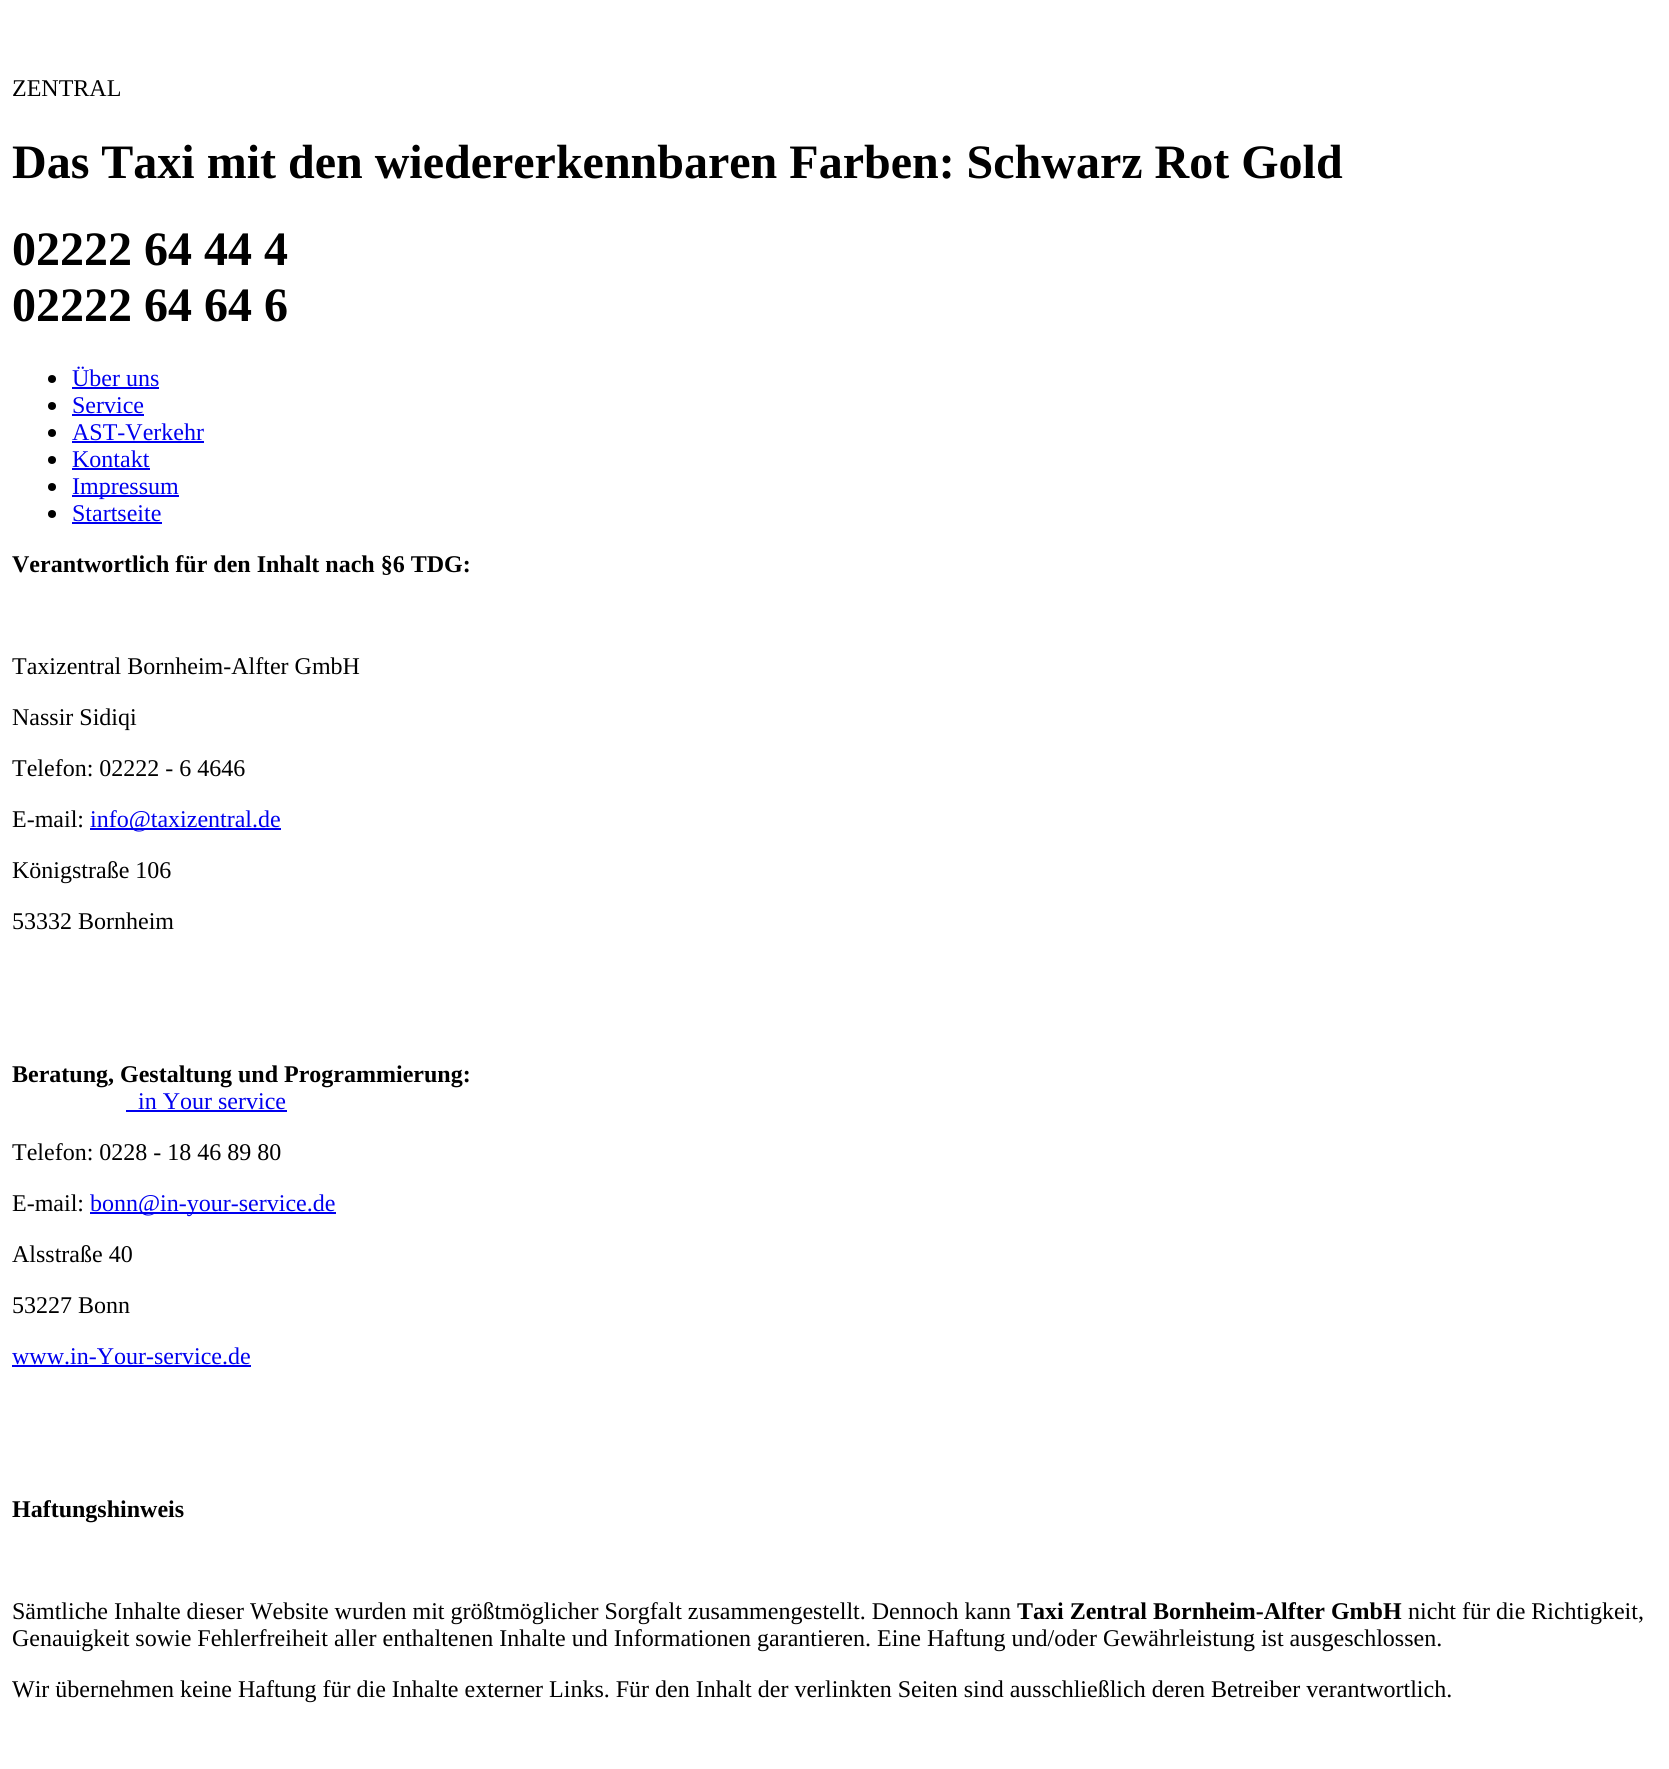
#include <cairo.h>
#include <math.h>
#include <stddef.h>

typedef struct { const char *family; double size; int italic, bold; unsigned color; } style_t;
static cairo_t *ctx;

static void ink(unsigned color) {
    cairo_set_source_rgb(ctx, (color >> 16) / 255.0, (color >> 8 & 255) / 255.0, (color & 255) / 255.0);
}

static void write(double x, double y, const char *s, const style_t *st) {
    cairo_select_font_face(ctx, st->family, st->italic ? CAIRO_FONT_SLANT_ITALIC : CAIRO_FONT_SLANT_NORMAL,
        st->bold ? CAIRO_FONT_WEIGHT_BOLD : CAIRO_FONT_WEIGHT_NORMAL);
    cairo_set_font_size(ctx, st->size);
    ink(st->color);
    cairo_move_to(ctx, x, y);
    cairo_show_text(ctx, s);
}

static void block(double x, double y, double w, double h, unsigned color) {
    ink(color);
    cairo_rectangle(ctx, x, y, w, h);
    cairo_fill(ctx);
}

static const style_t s1 = {"Liberation Serif", 24, 0, 0, 0x000000};
static const style_t s2 = {"Liberation Serif", 48, 0, 1, 0x000000};
static const style_t s3 = {"Liberation Serif", 24, 0, 0, 0x0000ee};
static const style_t s4 = {"Liberation Serif", 24, 0, 1, 0x000000};

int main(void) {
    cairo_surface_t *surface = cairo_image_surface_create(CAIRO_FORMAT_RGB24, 1669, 1769);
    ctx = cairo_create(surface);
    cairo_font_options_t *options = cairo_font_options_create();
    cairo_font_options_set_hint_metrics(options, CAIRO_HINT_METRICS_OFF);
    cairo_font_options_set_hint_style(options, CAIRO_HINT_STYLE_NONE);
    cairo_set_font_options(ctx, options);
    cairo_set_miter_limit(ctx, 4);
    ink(0xffffff);
    cairo_paint(ctx);
    write(12, 96, "ZENTRAL", &s1);
    write(12, 178, "Das Taxi mit den wiedererkennbaren Farben: Schwarz Rot Gold", &s2);
    write(12, 265, "02222 64 44 4", &s2);
    write(12, 321, "02222 64 64 6", &s2);
    cairo_new_path(ctx);
    cairo_arc(ctx, 52, 379, 4, 0, 2 * M_PI);
    cairo_fill(ctx);
    write(72, 386, "Über uns", &s3);
    block(72, 387, 87, 2, 0x0000ee);
    ink(0x000000);
    cairo_new_path(ctx);
    cairo_arc(ctx, 52, 406, 4, 0, 2 * M_PI);
    cairo_fill(ctx);
    write(72, 413, "Service", &s3);
    block(72, 414, 72, 2, 0x0000ee);
    ink(0x000000);
    cairo_new_path(ctx);
    cairo_arc(ctx, 52, 433, 4, 0, 2 * M_PI);
    cairo_fill(ctx);
    write(72, 440, "AST-Verkehr", &s3);
    block(72, 441, 132, 2, 0x0000ee);
    ink(0x000000);
    cairo_new_path(ctx);
    cairo_arc(ctx, 52, 460, 4, 0, 2 * M_PI);
    cairo_fill(ctx);
    write(72, 467, "Kontakt", &s3);
    block(72, 468, 78, 2, 0x0000ee);
    ink(0x000000);
    cairo_new_path(ctx);
    cairo_arc(ctx, 52, 487, 4, 0, 2 * M_PI);
    cairo_fill(ctx);
    block(72, 495, 107, 2, 0x0000ee);
    write(72, 494, "Impressum", &s3);
    ink(0x000000);
    cairo_new_path(ctx);
    cairo_arc(ctx, 52, 514, 4, 0, 2 * M_PI);
    cairo_fill(ctx);
    write(72, 521, "Startseite", &s3);
    block(72, 522, 90, 2, 0x0000ee);
    write(12, 572, "Verantwortlich für den Inhalt nach §6 TDG:", &s4);
    write(12, 674, "Taxizentral Bornheim-Alfter GmbH", &s1);
    write(12, 725, "Nassir Sidiqi", &s1);
    write(12, 776, "Telefon: 02222 - 6 4646", &s1);
    write(12, 827, "E-mail:", &s1);
    block(90, 828, 191, 2, 0x0000ee);
    write(90, 827, "info@taxizentral.de", &s3);
    write(12, 878, "Königstraße 106", &s1);
    write(12, 929, "53332 Bornheim", &s1);
    write(12, 1082, "Beratung, Gestaltung und Programmierung:", &s4);
    write(138, 1109, "in Your service", &s3);
    block(126, 1110, 161, 2, 0x0000ee);
    write(12, 1160, "Telefon: 0228 - 18 46 89 80", &s1);
    write(12, 1211, "E-mail:", &s1);
    block(90, 1212, 246, 2, 0x0000ee);
    write(90, 1211, "bonn@in-your-service.de", &s3);
    write(12, 1262, "Alsstraße 40", &s1);
    write(12, 1313, "53227 Bonn", &s1);
    write(12, 1364, "www.in-Your-service.de", &s3);
    block(12, 1365, 239, 2, 0x0000ee);
    write(12, 1517, "Haftungshinweis", &s4);
    write(12, 1619, "Sämtliche Inhalte dieser Website wurden mit größtmöglicher Sorgfalt zusammengestellt. Dennoch kann", &s1);
    write(1017, 1619, "Taxi Zentral Bornheim-Alfter GmbH", &s4);
    write(1408, 1619, "nicht für die Richtigkeit,", &s1);
    write(12, 1646, "Genauigkeit sowie Fehlerfreiheit aller enthaltenen Inhalte und Informationen garantieren. Eine Haftung und/oder Gewährleistung ist ausgeschlossen.", &s1);
    write(12, 1697, "Wir übernehmen keine Haftung für die Inhalte externer Links. Für den Inhalt der verlinkten Seiten sind ausschließlich deren Betreiber verantwortlich.", &s1);
    cairo_surface_write_to_png(surface, "screenshot.png");
    cairo_font_options_destroy(options);
    cairo_destroy(ctx);
    cairo_surface_destroy(surface);
    return 0;
}
